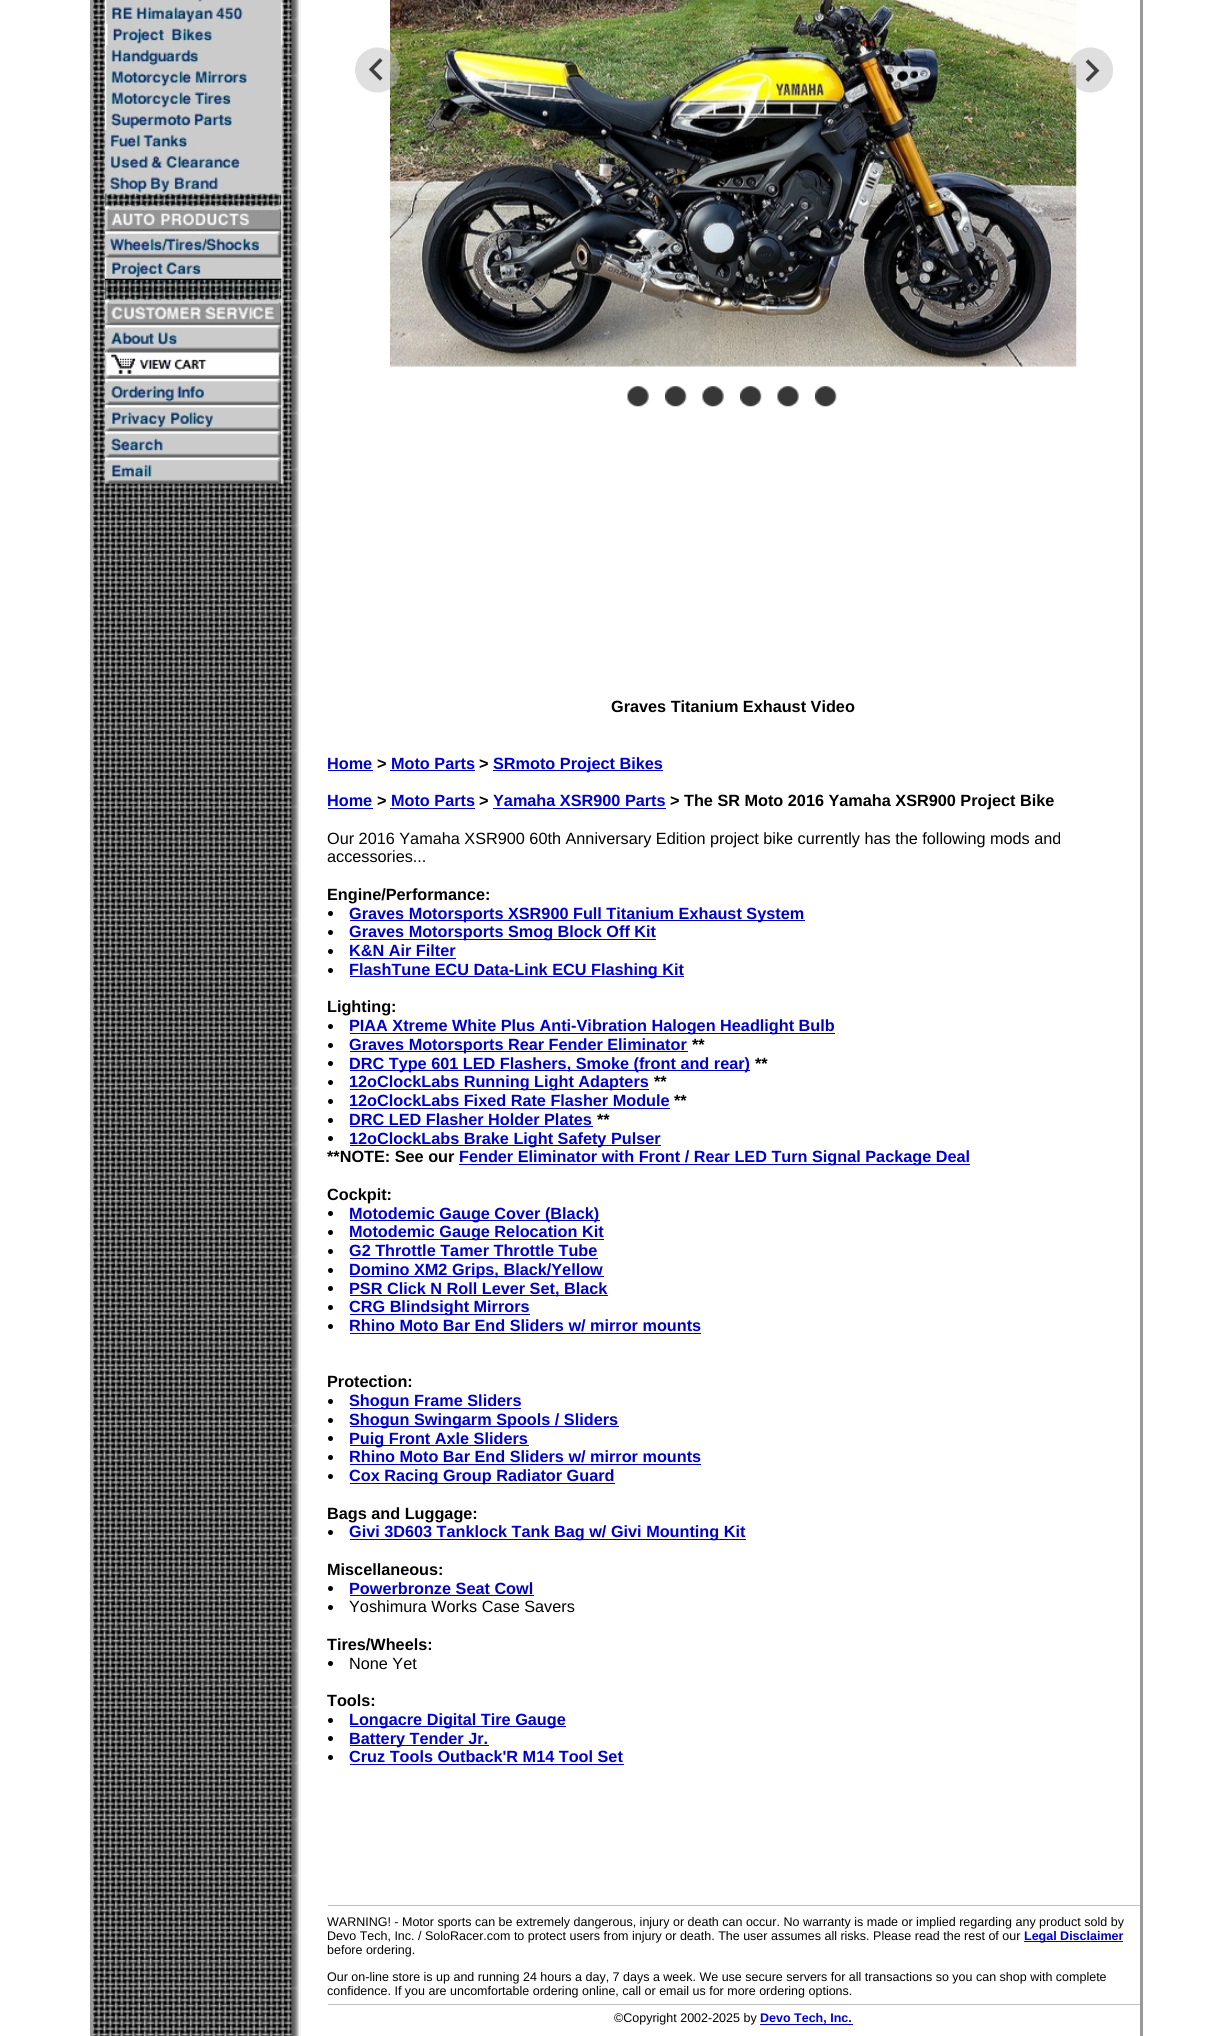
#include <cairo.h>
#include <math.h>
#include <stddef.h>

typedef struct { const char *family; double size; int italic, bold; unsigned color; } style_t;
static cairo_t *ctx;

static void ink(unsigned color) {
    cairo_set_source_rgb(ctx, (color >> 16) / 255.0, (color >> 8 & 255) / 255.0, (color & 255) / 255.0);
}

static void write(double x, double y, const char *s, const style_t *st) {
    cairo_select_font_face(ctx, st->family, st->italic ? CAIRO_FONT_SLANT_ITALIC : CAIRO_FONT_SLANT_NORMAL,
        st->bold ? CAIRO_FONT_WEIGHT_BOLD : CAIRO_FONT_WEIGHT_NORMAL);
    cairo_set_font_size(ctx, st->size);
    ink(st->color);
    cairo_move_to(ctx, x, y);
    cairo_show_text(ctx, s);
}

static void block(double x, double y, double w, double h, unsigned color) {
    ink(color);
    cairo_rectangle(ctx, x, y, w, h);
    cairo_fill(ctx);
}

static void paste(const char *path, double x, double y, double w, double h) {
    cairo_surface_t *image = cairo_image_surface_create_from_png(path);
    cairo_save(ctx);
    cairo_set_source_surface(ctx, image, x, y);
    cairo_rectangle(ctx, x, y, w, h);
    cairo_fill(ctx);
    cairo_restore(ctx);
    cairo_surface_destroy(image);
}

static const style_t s1 = {"Liberation Sans", 16.25, 0, 1, 0x000000};
static const style_t s2 = {"Liberation Sans", 16.25, 0, 1, 0x0000cc};
static const style_t s3 = {"Liberation Sans", 16.25, 0, 0, 0x000000};
static const style_t s4 = {"Liberation Sans", 12.5, 0, 0, 0x000000};
static const style_t s5 = {"Liberation Sans", 12.5, 0, 1, 0x0000cc};

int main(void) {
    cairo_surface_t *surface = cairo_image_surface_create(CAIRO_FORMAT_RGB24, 1231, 2036);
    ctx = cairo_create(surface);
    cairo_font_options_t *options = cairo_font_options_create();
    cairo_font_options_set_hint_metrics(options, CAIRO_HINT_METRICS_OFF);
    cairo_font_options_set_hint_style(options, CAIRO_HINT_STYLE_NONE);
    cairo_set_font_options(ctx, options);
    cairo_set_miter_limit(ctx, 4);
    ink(0xffffff);
    cairo_paint(ctx);
    paste("pic1.png", 93, 0, 208, 2036);
    cairo_rectangle(ctx, 91.5, -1.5, 1050, 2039);
    ink(0x999999);
    cairo_set_line_width(ctx, 3);
    cairo_stroke(ctx);
    paste("pic2.png", 105, 0, 178, 484);
    paste("pic4.png", 390, 0, 687, 367);
    paste("pic3.png", 355, 47, 45, 46);
    paste("pic5.png", 1068, 47, 45, 46);
    paste("pic6.png", 627, 386, 22, 21);
    paste("pic7.png", 665, 386, 22, 21);
    paste("pic6.png", 702, 386, 22, 21);
    paste("pic7.png", 740, 386, 22, 21);
    paste("pic6.png", 777, 386, 22, 21);
    paste("pic7.png", 815, 386, 22, 21);
    write(611, 712, "Graves Titanium Exhaust Video", &s1);
    write(327, 769, "Home", &s2);
    block(328, 770, 45, 1, 0x0000cc);
    write(377, 769, ">", &s1);
    write(391, 769, "Moto Parts", &s2);
    block(390, 770, 85, 1, 0x0000cc);
    write(479, 769, ">", &s1);
    block(493, 770, 170, 1, 0x0000cc);
    write(493, 769, "SRmoto Project Bikes", &s2);
    write(327, 806, "Home", &s2);
    block(328, 808, 45, 1, 0x0000cc);
    write(377, 806, ">", &s1);
    write(391, 806, "Moto Parts", &s2);
    block(390, 808, 85, 1, 0x0000cc);
    write(479, 806, ">", &s1);
    write(493, 806, "Yamaha XSR900 Parts", &s2);
    block(493, 808, 173, 1, 0x0000cc);
    write(670, 806, "> The SR Moto 2016 Yamaha XSR900 Project Bike", &s1);
    write(327, 844, "Our 2016 Yamaha XSR900 60th Anniversary Edition project bike currently has the following mods and", &s3);
    write(327, 862, "accessories...", &s3);
    write(327, 900, "Engine/Performance:", &s1);
    cairo_new_path(ctx);
    cairo_arc(ctx, 330.5, 913.5, 2.5, 0, 2 * M_PI);
    cairo_fill(ctx);
    block(350, 920, 455, 1, 0x0000cc);
    write(349, 919, "Graves Motorsports XSR900 Full Titanium Exhaust System", &s2);
    ink(0x000000);
    cairo_new_path(ctx);
    cairo_arc(ctx, 330.5, 932.5, 2.5, 0, 2 * M_PI);
    cairo_fill(ctx);
    block(350, 939, 306, 1, 0x0000cc);
    write(349, 937, "Graves Motorsports Smog Block Off Kit", &s2);
    ink(0x000000);
    cairo_new_path(ctx);
    cairo_arc(ctx, 330.5, 951.5, 2.5, 0, 2 * M_PI);
    cairo_fill(ctx);
    write(349, 956, "K&N Air Filter", &s2);
    block(350, 958, 106, 1, 0x0000cc);
    ink(0x000000);
    cairo_new_path(ctx);
    cairo_arc(ctx, 330.5, 970.5, 2.5, 0, 2 * M_PI);
    cairo_fill(ctx);
    block(350, 976, 334, 1, 0x0000cc);
    write(349, 975, "FlashTune ECU Data-Link ECU Flashing Kit", &s2);
    write(327, 1012, "Lighting:", &s1);
    cairo_new_path(ctx);
    cairo_arc(ctx, 330.5, 1026.5, 2.5, 0, 2 * M_PI);
    cairo_fill(ctx);
    block(350, 1033, 485, 1, 0x0000cc);
    write(349, 1031, "PIAA Xtreme White Plus Anti-Vibration Halogen Headlight Bulb", &s2);
    block(350, 1051, 338, 1, 0x0000cc);
    write(349, 1050, "Graves Motorsports Rear Fender Eliminator", &s2);
    write(692, 1050, "**", &s1);
    cairo_new_path(ctx);
    cairo_arc(ctx, 330.5, 1045.5, 2.5, 0, 2 * M_PI);
    cairo_fill(ctx);
    cairo_arc(ctx, 330.5, 1063.5, 2.5, 0, 2 * M_PI);
    cairo_fill(ctx);
    block(350, 1070, 400, 1, 0x0000cc);
    write(349, 1069, "DRC Type 601 LED Flashers, Smoke (front and rear)", &s2);
    write(755, 1069, "**", &s1);
    block(350, 1089, 299, 1, 0x0000cc);
    write(349, 1087, "12oClockLabs Running Light Adapters", &s2);
    write(654, 1087, "**", &s1);
    cairo_new_path(ctx);
    cairo_arc(ctx, 330.5, 1082.5, 2.5, 0, 2 * M_PI);
    cairo_fill(ctx);
    write(349, 1106, "12oClockLabs Fixed Rate Flasher Module", &s2);
    block(350, 1108, 320, 1, 0x0000cc);
    write(674, 1106, "**", &s1);
    cairo_new_path(ctx);
    cairo_arc(ctx, 330.5, 1101.5, 2.5, 0, 2 * M_PI);
    cairo_fill(ctx);
    write(349, 1125, "DRC LED Flasher Holder Plates", &s2);
    block(350, 1126, 243, 1, 0x0000cc);
    write(597, 1125, "**", &s1);
    cairo_new_path(ctx);
    cairo_arc(ctx, 330.5, 1120.5, 2.5, 0, 2 * M_PI);
    cairo_fill(ctx);
    cairo_arc(ctx, 330.5, 1138.5, 2.5, 0, 2 * M_PI);
    cairo_fill(ctx);
    block(350, 1145, 311, 1, 0x0000cc);
    write(349, 1144, "12oClockLabs Brake Light Safety Pulser", &s2);
    write(327, 1162, "**NOTE: See our", &s1);
    block(459, 1164, 511, 1, 0x0000cc);
    write(459, 1162, "Fender Eliminator with Front / Rear LED Turn Signal Package Deal", &s2);
    write(327, 1200, "Cockpit:", &s1);
    cairo_new_path(ctx);
    cairo_arc(ctx, 330.5, 1213.5, 2.5, 0, 2 * M_PI);
    cairo_fill(ctx);
    block(350, 1220, 250, 1, 0x0000cc);
    write(349, 1219, "Motodemic Gauge Cover (Black)", &s2);
    ink(0x000000);
    cairo_new_path(ctx);
    cairo_arc(ctx, 330.5, 1232.5, 2.5, 0, 2 * M_PI);
    cairo_fill(ctx);
    block(350, 1239, 254, 1, 0x0000cc);
    write(349, 1237, "Motodemic Gauge Relocation Kit", &s2);
    ink(0x000000);
    cairo_new_path(ctx);
    cairo_arc(ctx, 330.5, 1251.5, 2.5, 0, 2 * M_PI);
    cairo_fill(ctx);
    write(349, 1256, "G2 Throttle Tamer Throttle Tube", &s2);
    block(350, 1258, 248, 1, 0x0000cc);
    ink(0x000000);
    cairo_new_path(ctx);
    cairo_arc(ctx, 330.5, 1270.5, 2.5, 0, 2 * M_PI);
    cairo_fill(ctx);
    block(350, 1276, 254, 1, 0x0000cc);
    write(349, 1275, "Domino XM2 Grips, Black/Yellow", &s2);
    ink(0x000000);
    cairo_new_path(ctx);
    cairo_arc(ctx, 330.5, 1288.5, 2.5, 0, 2 * M_PI);
    cairo_fill(ctx);
    block(350, 1295, 258, 1, 0x0000cc);
    write(349, 1294, "PSR Click N Roll Lever Set, Black", &s2);
    ink(0x000000);
    cairo_new_path(ctx);
    cairo_arc(ctx, 330.5, 1307.5, 2.5, 0, 2 * M_PI);
    cairo_fill(ctx);
    block(350, 1314, 180, 1, 0x0000cc);
    write(349, 1312, "CRG Blindsight Mirrors", &s2);
    ink(0x000000);
    cairo_new_path(ctx);
    cairo_arc(ctx, 330.5, 1326.5, 2.5, 0, 2 * M_PI);
    cairo_fill(ctx);
    write(349, 1331, "Rhino Moto Bar End Sliders w/ mirror mounts", &s2);
    block(350, 1333, 351, 1, 0x0000cc);
    write(327, 1387, "Protection:", &s1);
    cairo_new_path(ctx);
    cairo_arc(ctx, 330.5, 1401.5, 2.5, 0, 2 * M_PI);
    cairo_fill(ctx);
    block(350, 1408, 171, 1, 0x0000cc);
    write(349, 1406, "Shogun Frame Sliders", &s2);
    ink(0x000000);
    cairo_new_path(ctx);
    cairo_arc(ctx, 330.5, 1420.5, 2.5, 0, 2 * M_PI);
    cairo_fill(ctx);
    block(350, 1426, 269, 1, 0x0000cc);
    write(349, 1425, "Shogun Swingarm Spools / Sliders", &s2);
    ink(0x000000);
    cairo_new_path(ctx);
    cairo_arc(ctx, 330.5, 1438.5, 2.5, 0, 2 * M_PI);
    cairo_fill(ctx);
    block(350, 1445, 179, 1, 0x0000cc);
    write(349, 1444, "Puig Front Axle Sliders", &s2);
    ink(0x000000);
    cairo_new_path(ctx);
    cairo_arc(ctx, 330.5, 1457.5, 2.5, 0, 2 * M_PI);
    cairo_fill(ctx);
    write(349, 1462, "Rhino Moto Bar End Sliders w/ mirror mounts", &s2);
    block(350, 1464, 351, 1, 0x0000cc);
    ink(0x000000);
    cairo_new_path(ctx);
    cairo_arc(ctx, 330.5, 1476.5, 2.5, 0, 2 * M_PI);
    cairo_fill(ctx);
    block(350, 1483, 265, 1, 0x0000cc);
    write(349, 1481, "Cox Racing Group Radiator Guard", &s2);
    write(327, 1519, "Bags and Luggage:", &s1);
    cairo_new_path(ctx);
    cairo_arc(ctx, 330.5, 1532.5, 2.5, 0, 2 * M_PI);
    cairo_fill(ctx);
    block(350, 1539, 396, 1, 0x0000cc);
    write(349, 1537, "Givi 3D603 Tanklock Tank Bag w/ Givi Mounting Kit", &s2);
    write(327, 1575, "Miscellaneous:", &s1);
    cairo_new_path(ctx);
    cairo_arc(ctx, 330.5, 1588.5, 2.5, 0, 2 * M_PI);
    cairo_fill(ctx);
    write(349, 1594, "Powerbronze Seat Cowl", &s2);
    block(350, 1595, 184, 1, 0x0000cc);
    ink(0x000000);
    cairo_new_path(ctx);
    cairo_arc(ctx, 330.5, 1607.5, 2.5, 0, 2 * M_PI);
    cairo_fill(ctx);
    write(349, 1612, "Yoshimura Works Case Savers", &s3);
    write(327, 1650, "Tires/Wheels:", &s1);
    cairo_new_path(ctx);
    cairo_arc(ctx, 330.5, 1663.5, 2.5, 0, 2 * M_PI);
    cairo_fill(ctx);
    write(349, 1669, "None Yet", &s3);
    write(327, 1706, "Tools:", &s1);
    cairo_new_path(ctx);
    cairo_arc(ctx, 330.5, 1720.5, 2.5, 0, 2 * M_PI);
    cairo_fill(ctx);
    block(350, 1726, 216, 1, 0x0000cc);
    write(349, 1725, "Longacre Digital Tire Gauge", &s2);
    ink(0x000000);
    cairo_new_path(ctx);
    cairo_arc(ctx, 330.5, 1738.5, 2.5, 0, 2 * M_PI);
    cairo_fill(ctx);
    block(350, 1745, 139, 1, 0x0000cc);
    write(349, 1744, "Battery Tender Jr.", &s2);
    ink(0x000000);
    cairo_new_path(ctx);
    cairo_arc(ctx, 330.5, 1757.5, 2.5, 0, 2 * M_PI);
    cairo_fill(ctx);
    write(349, 1762, "Cruz Tools Outback'R M14 Tool Set", &s2);
    block(350, 1764, 274, 1, 0x0000cc);
    block(328, 1905, 812, 1, 0xc0c0c0);
    write(327, 1926, "WARNING! - Motor sports can be extremely dangerous, injury or death can occur. No warranty is made or implied regarding any product sold by", &s4);
    write(327, 1940, "Devo Tech, Inc. / SoloRacer.com to protect users from injury or death. The user assumes all risks. Please read the rest of our", &s4);
    block(1024, 1941, 99, 1, 0x0000cc);
    write(1024, 1940, "Legal Disclaimer", &s5);
    write(327, 1954, "before ordering.", &s4);
    write(327, 1981, "Our on-line store is up and running 24 hours a day, 7 days a week. We use secure servers for all transactions so you can shop with complete", &s4);
    write(327, 1995, "confidence. If you are uncomfortable ordering online, call or email us for more ordering options.", &s4);
    block(328, 2004, 812, 1, 0xc0c0c0);
    write(614, 2022, "©Copyright 2002-2025 by", &s4);
    write(760, 2022, "Devo Tech, Inc.", &s5);
    block(760, 2024, 93, 1, 0x0000cc);
    cairo_surface_write_to_png(surface, "screenshot.png");
    cairo_font_options_destroy(options);
    cairo_destroy(ctx);
    cairo_surface_destroy(surface);
    return 0;
}
